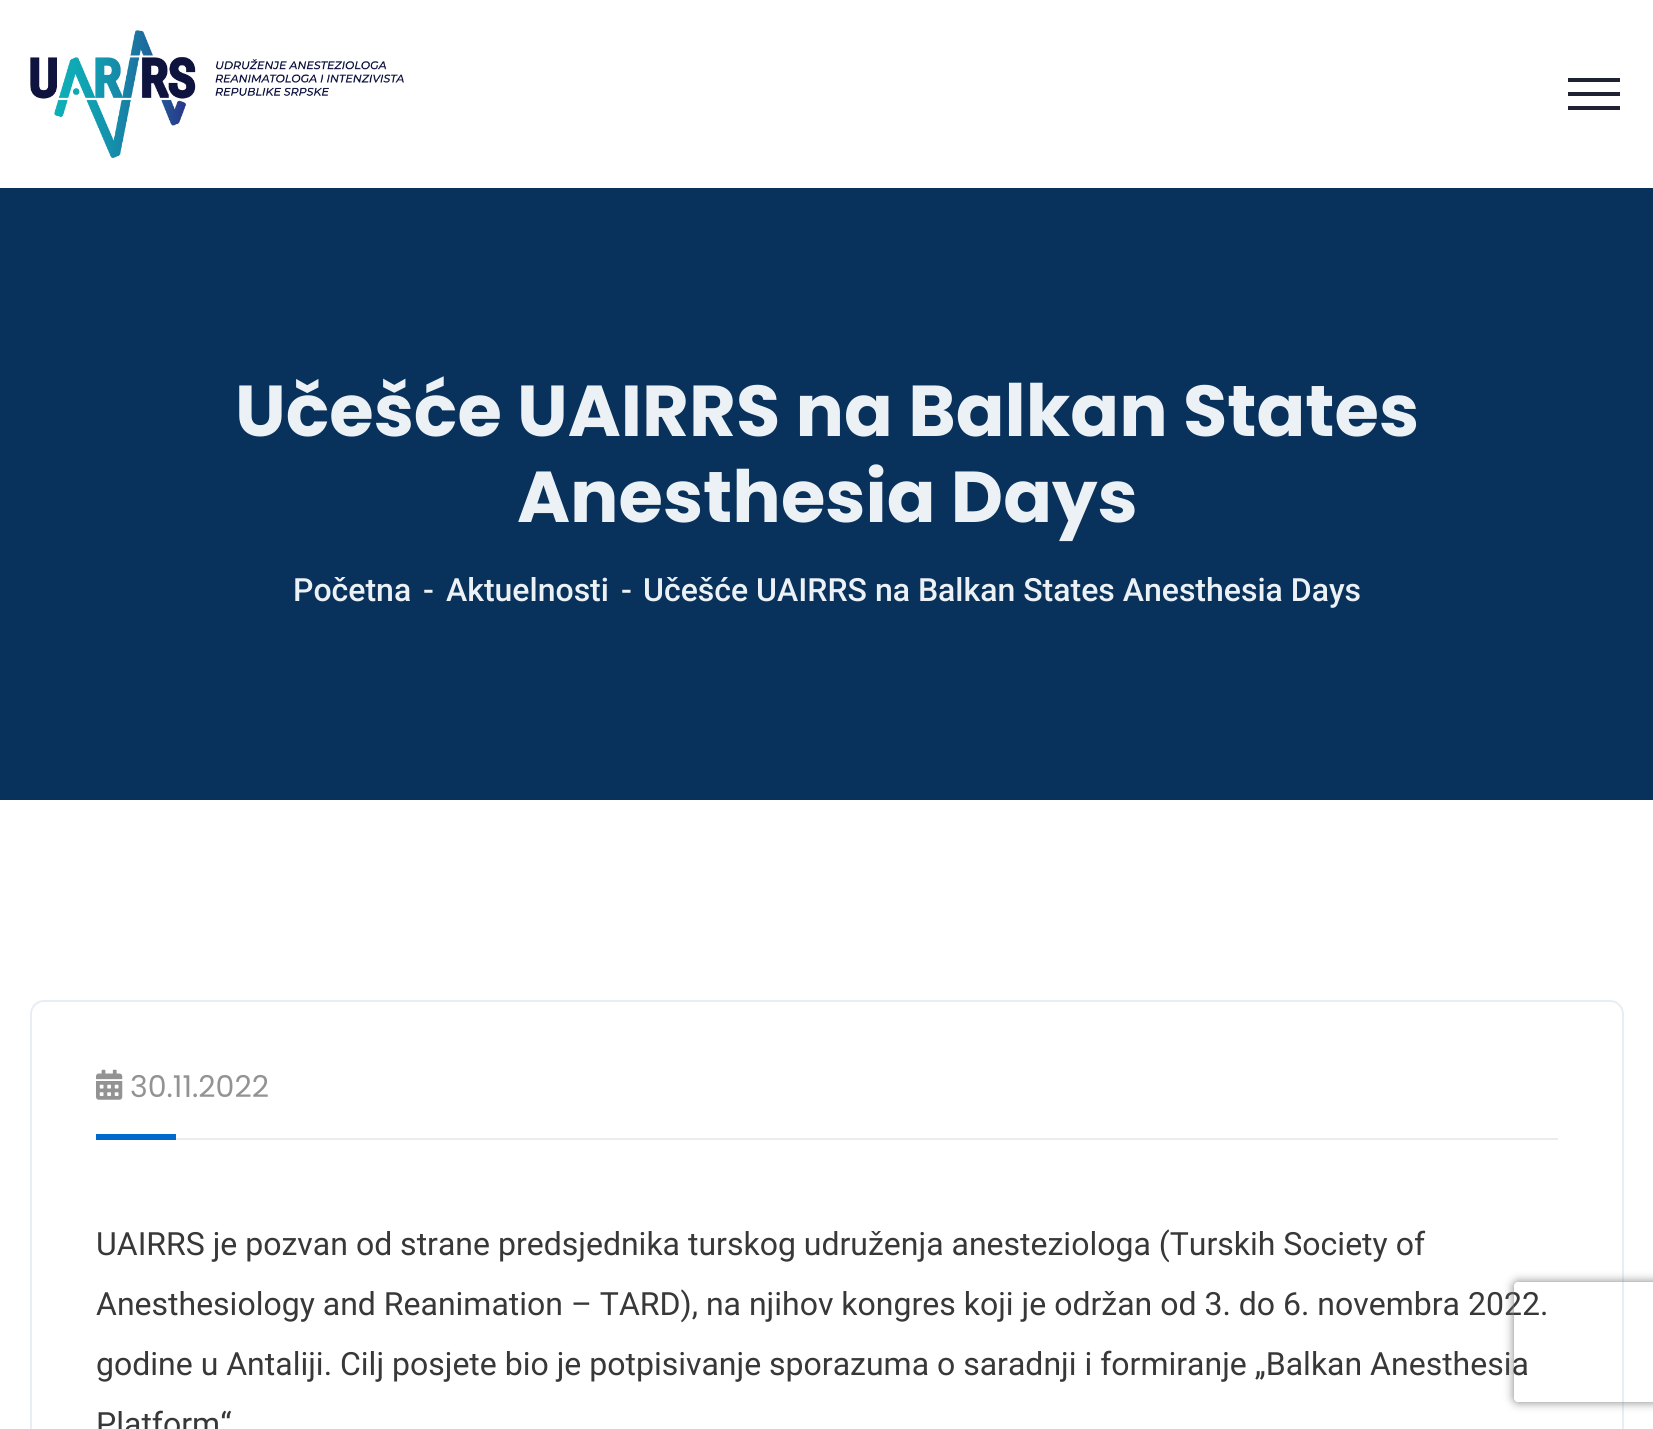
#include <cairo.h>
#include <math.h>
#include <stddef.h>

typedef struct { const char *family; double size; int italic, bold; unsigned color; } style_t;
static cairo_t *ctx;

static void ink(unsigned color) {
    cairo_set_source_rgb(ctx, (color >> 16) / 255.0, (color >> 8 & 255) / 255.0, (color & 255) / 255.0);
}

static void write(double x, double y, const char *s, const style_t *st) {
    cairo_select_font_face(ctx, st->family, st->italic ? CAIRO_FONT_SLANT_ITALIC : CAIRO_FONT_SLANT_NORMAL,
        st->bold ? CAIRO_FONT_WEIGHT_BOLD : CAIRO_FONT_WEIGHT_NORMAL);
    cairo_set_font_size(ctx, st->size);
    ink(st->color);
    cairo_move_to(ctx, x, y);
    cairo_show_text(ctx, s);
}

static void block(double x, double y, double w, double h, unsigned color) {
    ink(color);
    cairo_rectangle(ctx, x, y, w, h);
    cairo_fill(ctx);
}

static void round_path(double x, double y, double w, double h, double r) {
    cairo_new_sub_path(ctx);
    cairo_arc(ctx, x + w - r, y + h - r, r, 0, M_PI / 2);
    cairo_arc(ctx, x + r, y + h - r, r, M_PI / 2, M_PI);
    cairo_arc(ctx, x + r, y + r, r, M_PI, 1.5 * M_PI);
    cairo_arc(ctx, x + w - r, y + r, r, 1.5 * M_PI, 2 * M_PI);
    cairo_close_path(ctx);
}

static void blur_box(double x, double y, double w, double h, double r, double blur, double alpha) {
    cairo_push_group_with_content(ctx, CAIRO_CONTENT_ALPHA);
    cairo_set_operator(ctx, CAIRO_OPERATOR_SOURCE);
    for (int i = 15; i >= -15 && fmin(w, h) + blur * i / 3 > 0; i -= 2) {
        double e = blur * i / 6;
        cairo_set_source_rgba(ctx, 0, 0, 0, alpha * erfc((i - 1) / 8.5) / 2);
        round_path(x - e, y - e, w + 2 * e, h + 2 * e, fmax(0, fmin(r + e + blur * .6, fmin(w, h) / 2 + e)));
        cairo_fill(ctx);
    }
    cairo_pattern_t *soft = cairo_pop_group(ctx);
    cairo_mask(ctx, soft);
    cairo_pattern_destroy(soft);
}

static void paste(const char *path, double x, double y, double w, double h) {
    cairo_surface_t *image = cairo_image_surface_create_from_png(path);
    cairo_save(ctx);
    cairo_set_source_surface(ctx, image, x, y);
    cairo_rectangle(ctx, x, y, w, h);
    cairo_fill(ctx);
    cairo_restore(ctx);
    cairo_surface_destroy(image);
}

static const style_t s1 = {"Poppins", 72, 0, 1, 0xecf1f5};
static const style_t s2 = {"Roboto Medium", 32, 0, 0, 0xecf1f5};
static const style_t s3 = {"Poppins", 30, 0, 0, 0x939393};
static const style_t s4 = {"Roboto", 32, 0, 0, 0x383838};

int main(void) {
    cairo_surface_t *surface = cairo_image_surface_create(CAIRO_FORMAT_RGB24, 1653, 1429);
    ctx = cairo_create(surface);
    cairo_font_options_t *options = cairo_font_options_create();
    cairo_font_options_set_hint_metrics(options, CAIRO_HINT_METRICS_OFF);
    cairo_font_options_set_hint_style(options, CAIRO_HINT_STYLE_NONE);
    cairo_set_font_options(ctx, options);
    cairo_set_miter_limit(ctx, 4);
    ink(0xffffff);
    cairo_paint(ctx);
    paste("pic1.png", 30, 30, 374, 128);
    block(1568, 78, 52, 4, 0x1f2233);
    block(1568, 92, 52, 4, 0x1f2233);
    block(1568, 106, 52, 4, 0x1f2233);
    block(0, 188, 1653, 612, 0x08325b);
    write(235, 436, "Učešće UAIRRS na Balkan States", &s1);
    write(517, 522, "Anesthesia Days", &s1);
    write(293, 601, "Početna", &s2);
    write(423, 601, "-", &s2);
    write(446, 601, "Aktuelnosti", &s2);
    write(621, 601, "-", &s2);
    write(643, 601, "Učešće UAIRRS na Balkan States Anesthesia Days", &s2);
    round_path(31, 1001, 1592, 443, 13);
    ink(0xe8edf5);
    cairo_stroke(ctx);
    block(176, 1138, 1382, 2, 0xececf0);
    paste("pic2.png", 96, 1069, 27, 31);
    write(130, 1097, "30.11.2022", &s3);
    block(96, 1134, 80, 6, 0x006acc);
    write(96, 1255, "UAIRRS je pozvan od strane predsjednika turskog udruženja anesteziologa (Turskih Society of", &s4);
    write(96, 1315, "Anesthesiology and Reanimation – TARD), na njihov kongres koji je održan od 3. do 6. novembra 2022.", &s4);
    write(96, 1375, "godine u Antaliji. Cilj posjete bio je potpisivanje sporazuma o saradnji i formiranje „Balkan Anesthesia", &s4);
    write(96, 1435, "Platform“", &s4);
    cairo_save(ctx);
    cairo_set_fill_rule(ctx, CAIRO_FILL_RULE_EVEN_ODD);
    cairo_new_path(ctx);
    cairo_move_to(ctx, 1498, 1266);
    cairo_line_to(ctx, 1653, 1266);
    cairo_line_to(ctx, 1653, 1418);
    cairo_line_to(ctx, 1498, 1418);
    cairo_close_path(ctx);
    cairo_move_to(ctx, 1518, 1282);
    cairo_line_to(ctx, 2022, 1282);
    cairo_curve_to(ctx, 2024, 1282, 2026, 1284, 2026, 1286);
    cairo_line_to(ctx, 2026, 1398);
    cairo_curve_to(ctx, 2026, 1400, 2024, 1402, 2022, 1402);
    cairo_line_to(ctx, 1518, 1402);
    cairo_curve_to(ctx, 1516, 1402, 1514, 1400, 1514, 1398);
    cairo_line_to(ctx, 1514, 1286);
    cairo_curve_to(ctx, 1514, 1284, 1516, 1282, 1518, 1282);
    cairo_close_path(ctx);
    cairo_clip(ctx);
    ink(0x808080);
    blur_box(1514, 1282, 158, 120, 4, 5, 1);
    cairo_restore(ctx);
    cairo_surface_write_to_png(surface, "screenshot.png");
    cairo_font_options_destroy(options);
    cairo_destroy(ctx);
    cairo_surface_destroy(surface);
    return 0;
}
